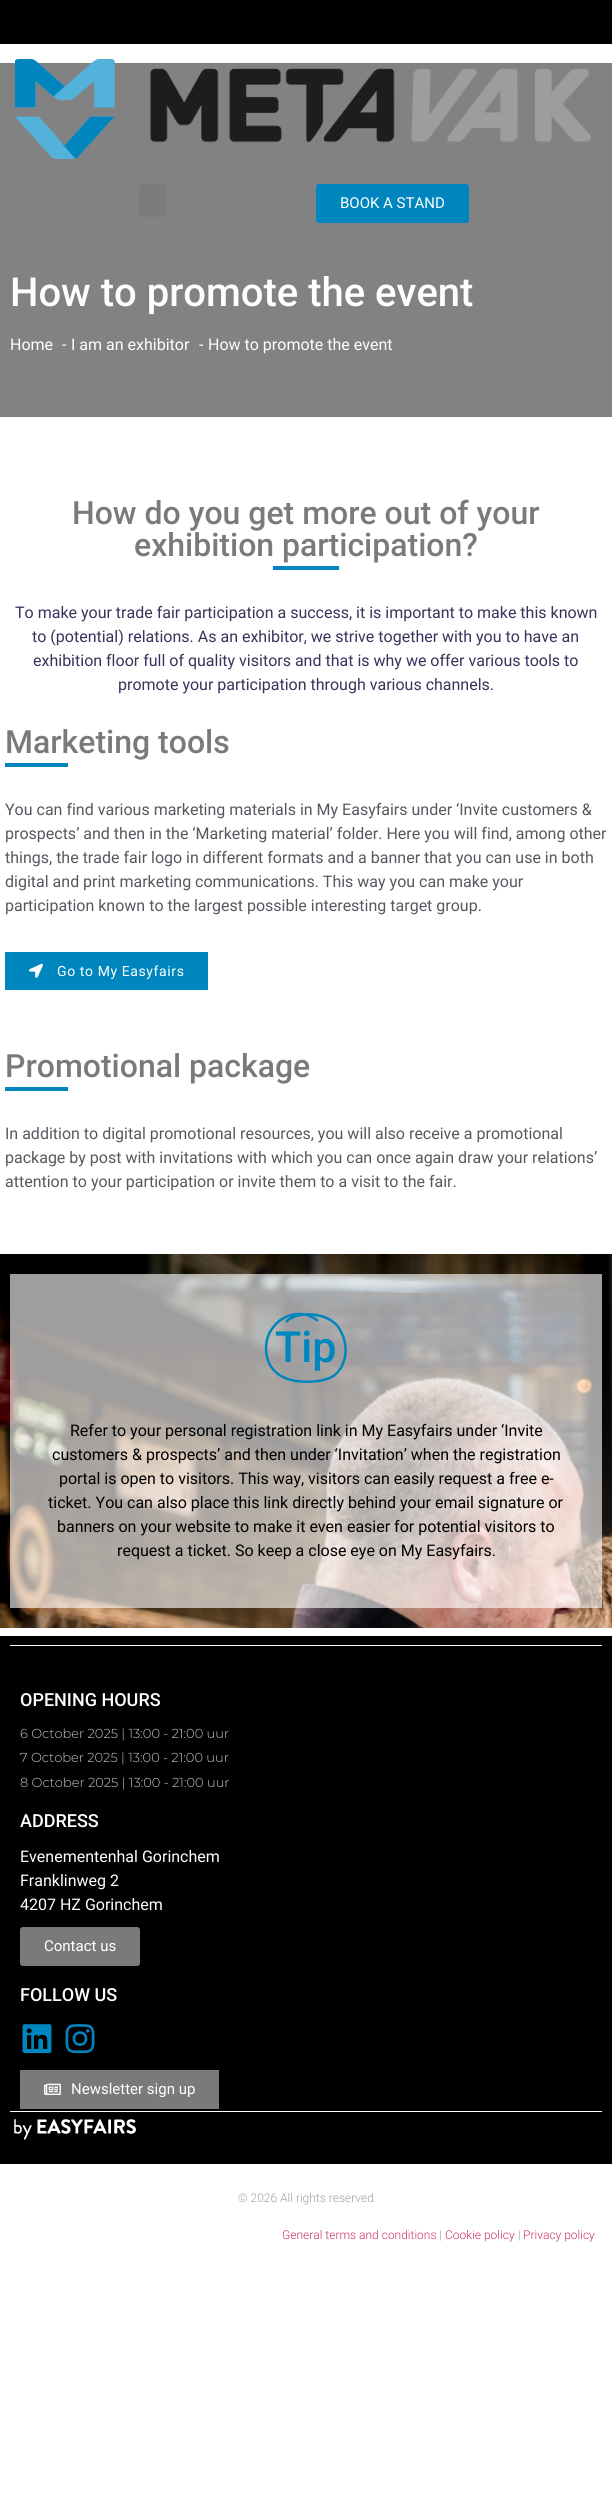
#include <cairo.h>
#include <math.h>
#include <stddef.h>

typedef struct { const char *family; double size; int italic, bold; unsigned color; } style_t;
static cairo_t *ctx;

static void ink(unsigned color) {
    cairo_set_source_rgb(ctx, (color >> 16) / 255.0, (color >> 8 & 255) / 255.0, (color & 255) / 255.0);
}

static void write(double x, double y, const char *s, const style_t *st) {
    cairo_select_font_face(ctx, st->family, st->italic ? CAIRO_FONT_SLANT_ITALIC : CAIRO_FONT_SLANT_NORMAL,
        st->bold ? CAIRO_FONT_WEIGHT_BOLD : CAIRO_FONT_WEIGHT_NORMAL);
    cairo_set_font_size(ctx, st->size);
    ink(st->color);
    cairo_move_to(ctx, x, y);
    cairo_show_text(ctx, s);
}

static void write_spaced(double x, double y, const char *s, double letter, double word) {
    cairo_move_to(ctx, x, y);
    while (*s) {
        char ch[5] = {0};
        int n = 0;
        do ch[n++] = *s++; while ((*s & 0xC0) == 0x80);
        cairo_show_text(ctx, ch);
        cairo_rel_move_to(ctx, letter + word * (*ch == ' '), 0);
    }
}

static void block(double x, double y, double w, double h, unsigned color) {
    ink(color);
    cairo_rectangle(ctx, x, y, w, h);
    cairo_fill(ctx);
}

static void round_path(double x, double y, double w, double h, double r) {
    cairo_new_sub_path(ctx);
    cairo_arc(ctx, x + w - r, y + h - r, r, 0, M_PI / 2);
    cairo_arc(ctx, x + r, y + h - r, r, M_PI / 2, M_PI);
    cairo_arc(ctx, x + r, y + r, r, M_PI, 1.5 * M_PI);
    cairo_arc(ctx, x + w - r, y + r, r, 1.5 * M_PI, 2 * M_PI);
    cairo_close_path(ctx);
}

static void paste(const char *path, double x, double y, double w, double h) {
    cairo_surface_t *image = cairo_image_surface_create_from_png(path);
    cairo_save(ctx);
    cairo_set_source_surface(ctx, image, x, y);
    cairo_rectangle(ctx, x, y, w, h);
    cairo_fill(ctx);
    cairo_restore(ctx);
    cairo_surface_destroy(image);
}

static const style_t s1 = {"Roboto", 15, 0, 0, 0xffffff};
static const style_t s2 = {"Roboto Medium", 40, 0, 0, 0xffffff};
static const style_t s3 = {"Roboto", 16, 0, 0, 0xffffff};
static const style_t s4 = {"Roboto Medium", 32, 0, 0, 0x7a7a7a};
static const style_t s5 = {"Roboto", 16, 0, 0, 0x3b315b};
static const style_t s6 = {"Roboto", 16, 0, 0, 0x54595f};
static const style_t s7 = {"Roboto Medium", 43, 0, 0, 0x0086be};
static const style_t s8 = {"Roboto", 16, 0, 0, 0x000000};
static const style_t s9 = {"Roboto Medium", 18, 0, 0, 0xffffff};
static const style_t s10 = {"Montserrat Light", 13, 0, 0, 0xc9c9c9};
static const style_t s11 = {"Roboto Light", 12, 0, 0, 0x9e9e9e};
static const style_t s12 = {"Roboto Light", 12, 0, 0, 0xcc3366};

int main(void) {
    cairo_surface_t *surface = cairo_image_surface_create(CAIRO_FORMAT_RGB24, 612, 2499);
    ctx = cairo_create(surface);
    cairo_font_options_t *options = cairo_font_options_create();
    cairo_font_options_set_hint_metrics(options, CAIRO_HINT_METRICS_OFF);
    cairo_font_options_set_hint_style(options, CAIRO_HINT_STYLE_NONE);
    cairo_set_font_options(ctx, options);
    cairo_set_miter_limit(ctx, 4);
    ink(0xffffff);
    cairo_paint(ctx);
    block(0, 0, 612, 44, 0x000000);
    block(0, 63, 612, 354, 0x828282);
    paste("pic1.png", 15, 59, 576, 100);
    ink(0x7c7c7c);
    round_path(139, 184, 28, 33, 3);
    cairo_fill(ctx);
    ink(0x0086be);
    round_path(316, 184, 153, 39, 3);
    cairo_fill(ctx);
    write(340, 208, "BOOK A STAND", &s1);
    write(10, 306, "How to promote the event", &s2);
    write(10, 350, "Home", &s3);
    write(62, 350, "-", &s3);
    write(71, 350, "I am an exhibitor", &s3);
    write(199, 350, "-", &s3);
    write(208, 350, "How to promote the event", &s3);
    write(72, 524, "How do you get more out of your", &s4);
    write(134, 556, "exhibition participation?", &s4);
    block(273, 566, 66, 4, 0x0086be);
    write(15, 618, "To make your trade fair participation a success, it is important to make this known", &s5);
    write(32, 642, "to (potential) relations. As an exhibitor, we strive together with you to have an", &s5);
    write(33, 666, "exhibition floor full of quality visitors and that is why we offer various tools to", &s5);
    write(118, 690, "promote your participation through various channels.", &s5);
    write(5, 753, "Marketing tools", &s4);
    block(5, 763, 63, 4, 0x0086be);
    write(5, 815, "You can find various marketing materials in My Easyfairs under ‘Invite customers &", &s6);
    write(5, 839, "prospects’ and then in the ‘Marketing material’ folder. Here you will find, among other", &s6);
    write(5, 863, "things, the trade fair logo in different formats and a banner that you can use in both", &s6);
    write(5, 887, "digital and print marketing communications. This way you can make your", &s6);
    write(5, 911, "participation known to the largest possible interesting target group.", &s6);
    block(5, 952, 203, 38, 0x0086be);
    paste("pic2.png", 29, 963, 14, 15);
    cairo_set_font_size(ctx, 14);
    ink(0xffffff);
    write_spaced(57, 976, "Go to My Easyfairs", 0.6, 0);
    write(5, 1077, "Promotional package", &s4);
    block(5, 1087, 63, 4, 0x0086be);
    write(5, 1139, "In addition to digital promotional resources, you will also receive a promotional", &s6);
    write(5, 1163, "package by post with invitations with which you can once again draw your relations’", &s6);
    write(5, 1187, "attention to your participation or invite them to a visit to the fair.", &s6);
    paste("pic3.png", 0, 1254, 612, 374);
    cairo_set_source_rgba(ctx, 1, 1, 1, 0.62);
    cairo_rectangle(ctx, 10, 1274, 592, 334);
    cairo_fill(ctx);
    cairo_new_path(ctx);
    cairo_move_to(ctx, 318, 1321);
    cairo_curve_to(ctx, 302.5, 1308, 284.5, 1316, 278, 1322);
    cairo_curve_to(ctx, 269, 1330.5, 266, 1338.5, 266, 1349);
    cairo_curve_to(ctx, 266.5, 1364.5, 274.5, 1375, 289.5, 1379.5);
    cairo_curve_to(ctx, 300, 1383, 324, 1383, 334, 1375.5);
    cairo_curve_to(ctx, 344.5, 1368, 351, 1348, 339.5, 1329);
    cairo_curve_to(ctx, 328, 1310, 294.5, 1311.5, 286, 1322);
    ink(0x0086be);
    cairo_set_line_width(ctx, 2.5);
    cairo_stroke(ctx);
    write(275, 1362, "Tip", &s7);
    write(70, 1436, "Refer to your personal registration link in My Easyfairs under ‘Invite", &s8);
    write(52, 1460, "customers & prospects’ and then under ‘Invitation’ when the registration", &s8);
    write(59, 1484, "portal is open to visitors. This way, visitors can easily request a free e-", &s8);
    write(48, 1508, "ticket. You can also place this link directly behind your email signature or", &s8);
    write(57, 1532, "banners on your website to make it even easier for potential visitors to", &s8);
    write(117, 1556, "request a ticket. So keep a close eye on My Easyfairs.", &s8);
    block(0, 1636, 612, 528, 0x000000);
    block(10, 1645, 592, 1, 0xffffff);
    write(20, 1706, "OPENING HOURS", &s9);
    write(20, 1738, "6 October 2025 | 13:00 - 21:00 uur", &s10);
    write(20, 1762, "7 October 2025 | 13:00 - 21:00 uur", &s10);
    write(20, 1787, "8 October 2025 | 13:00 - 21:00 uur", &s10);
    write(20, 1827, "ADDRESS", &s9);
    write(20, 1862, "Evenementenhal Gorinchem", &s3);
    write(20, 1886, "Franklinweg 2", &s3);
    write(20, 1910, "4207 HZ Gorinchem", &s3);
    ink(0x7a7a7a);
    round_path(20, 1927, 120, 39, 3);
    cairo_fill(ctx);
    write(44, 1951, "Contact us", &s1);
    write(20, 2001, "FOLLOW US", &s9);
    paste("pic4.png", 22, 2024, 30, 30);
    paste("pic5.png", 65, 2024, 30, 30);
    block(20, 2070, 199, 39, 0x7a7a7a);
    paste("pic6.png", 44, 2083, 17, 12);
    write(71, 2094, "Newsletter sign up", &s1);
    block(10, 2111, 592, 1, 0xffffff);
    paste("pic7.png", 14, 2119, 122, 21);
    write(238, 2202, "© 2026 All rights reserved", &s11);
    write(282, 2239, "General terms and conditions", &s12);
    write(439, 2239, "|", &s11);
    write(445, 2239, "Cookie policy", &s12);
    write(518, 2239, "|", &s11);
    write(523, 2239, "Privacy policy", &s12);
    cairo_surface_write_to_png(surface, "screenshot.png");
    cairo_font_options_destroy(options);
    cairo_destroy(ctx);
    cairo_surface_destroy(surface);
    return 0;
}
